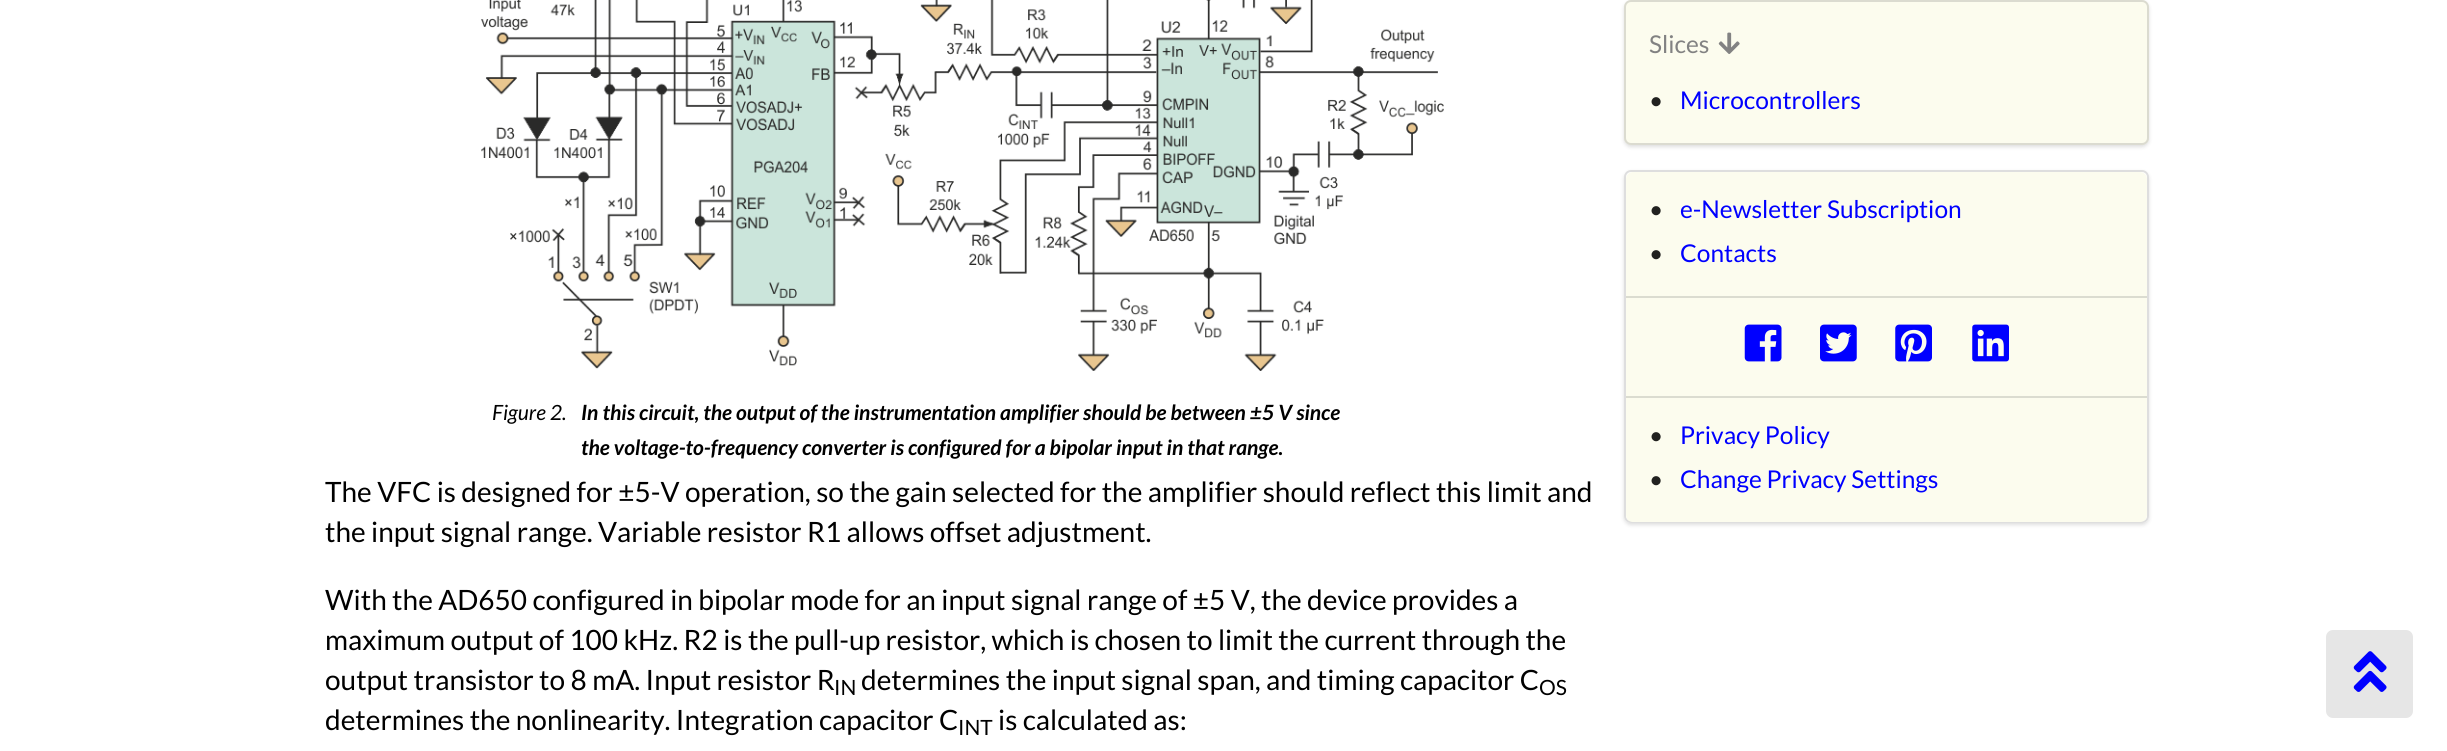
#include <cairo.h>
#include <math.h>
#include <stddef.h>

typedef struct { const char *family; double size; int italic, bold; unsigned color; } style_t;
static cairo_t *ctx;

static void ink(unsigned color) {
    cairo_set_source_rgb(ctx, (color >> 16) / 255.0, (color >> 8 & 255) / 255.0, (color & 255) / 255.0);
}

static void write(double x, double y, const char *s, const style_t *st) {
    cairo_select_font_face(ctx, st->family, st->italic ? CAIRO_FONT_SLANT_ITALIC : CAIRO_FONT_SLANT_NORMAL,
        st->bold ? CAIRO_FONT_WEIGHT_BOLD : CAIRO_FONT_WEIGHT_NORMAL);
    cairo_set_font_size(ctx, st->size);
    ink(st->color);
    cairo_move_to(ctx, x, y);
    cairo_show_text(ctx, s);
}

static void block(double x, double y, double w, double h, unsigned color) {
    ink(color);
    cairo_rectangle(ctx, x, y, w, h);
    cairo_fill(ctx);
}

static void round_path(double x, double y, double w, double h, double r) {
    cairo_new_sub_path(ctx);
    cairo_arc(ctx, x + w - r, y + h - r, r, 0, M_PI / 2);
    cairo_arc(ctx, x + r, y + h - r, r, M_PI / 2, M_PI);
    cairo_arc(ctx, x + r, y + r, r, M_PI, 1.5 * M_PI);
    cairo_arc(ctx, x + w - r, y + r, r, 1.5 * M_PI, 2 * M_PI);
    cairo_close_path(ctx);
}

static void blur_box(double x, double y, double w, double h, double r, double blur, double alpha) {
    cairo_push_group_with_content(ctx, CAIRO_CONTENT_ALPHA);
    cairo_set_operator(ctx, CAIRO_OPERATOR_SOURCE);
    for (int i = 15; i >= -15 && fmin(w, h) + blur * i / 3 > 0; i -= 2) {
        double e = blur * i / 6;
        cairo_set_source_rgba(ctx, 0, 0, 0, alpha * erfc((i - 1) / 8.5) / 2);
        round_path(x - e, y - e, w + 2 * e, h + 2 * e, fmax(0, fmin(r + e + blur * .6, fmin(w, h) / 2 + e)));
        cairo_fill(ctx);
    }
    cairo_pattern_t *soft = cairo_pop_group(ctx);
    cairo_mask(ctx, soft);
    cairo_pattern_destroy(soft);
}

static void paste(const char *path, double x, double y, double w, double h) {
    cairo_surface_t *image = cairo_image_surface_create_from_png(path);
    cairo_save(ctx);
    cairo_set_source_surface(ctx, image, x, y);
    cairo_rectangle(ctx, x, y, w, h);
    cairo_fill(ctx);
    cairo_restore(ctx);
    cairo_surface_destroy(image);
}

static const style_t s1 = {"Lato", 24.5, 0, 0, 0x828282};
static const style_t s2 = {"Lato", 24.5, 0, 0, 0x21211f};
static const style_t s3 = {"Lato", 24.5, 0, 0, 0x0000ff};
static const style_t s4 = {"Lato", 21, 1, 0, 0x000000};
static const style_t s5 = {"Lato", 21, 1, 1, 0x000000};
static const style_t s6 = {"Lato", 28, 0, 0, 0x000000};
static const style_t s7 = {"Lato", 21, 0, 0, 0x000000};

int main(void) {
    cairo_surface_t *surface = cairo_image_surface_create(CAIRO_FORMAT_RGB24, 2447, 751);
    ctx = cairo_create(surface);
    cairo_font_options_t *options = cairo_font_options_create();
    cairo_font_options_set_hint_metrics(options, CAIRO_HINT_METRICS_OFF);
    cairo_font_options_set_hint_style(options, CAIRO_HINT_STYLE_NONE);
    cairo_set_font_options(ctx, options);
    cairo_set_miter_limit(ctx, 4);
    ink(0xffffff);
    cairo_paint(ctx);
    ink(0x222426);
    blur_box(1624, 2, 525, 145, 7, 2, 0.15);
    ink(0xfcfcee);
    round_path(1624, 0, 525, 145, 7);
    cairo_fill(ctx);
    round_path(1625, 1, 523, 143, 6);
    cairo_set_source_rgba(ctx, 0.133, 0.141, 0.149, 0.15);
    cairo_stroke(ctx);
    write(1649, 53, "Slices", &s1);
    paste("pic1.png", 1718, 32, 22, 22);
    write(1649, 109, "•", &s2);
    write(1680, 109, "Microcontrollers", &s3);
    cairo_save(ctx);
    cairo_set_fill_rule(ctx, CAIRO_FILL_RULE_EVEN_ODD);
    cairo_new_path(ctx);
    cairo_move_to(ctx, 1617, 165);
    cairo_line_to(ctx, 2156, 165);
    cairo_line_to(ctx, 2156, 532);
    cairo_line_to(ctx, 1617, 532);
    cairo_close_path(ctx);
    cairo_move_to(ctx, 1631, 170);
    cairo_line_to(ctx, 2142, 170);
    cairo_curve_to(ctx, 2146, 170, 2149, 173, 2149, 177);
    cairo_line_to(ctx, 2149, 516);
    cairo_curve_to(ctx, 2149, 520, 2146, 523, 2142, 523);
    cairo_line_to(ctx, 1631, 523);
    cairo_curve_to(ctx, 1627, 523, 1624, 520, 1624, 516);
    cairo_line_to(ctx, 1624, 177);
    cairo_curve_to(ctx, 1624, 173, 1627, 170, 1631, 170);
    cairo_close_path(ctx);
    cairo_clip(ctx);
    ink(0x222426);
    blur_box(1624, 172, 525, 353, 7, 2, 0.15);
    cairo_restore(ctx);
    round_path(1625, 171, 523, 351, 6);
    cairo_set_source_rgba(ctx, 0.133, 0.141, 0.149, 0.15);
    cairo_stroke(ctx);
    ink(0xfcfcee);
    cairo_new_path(ctx);
    cairo_move_to(ctx, 1633, 172);
    cairo_line_to(ctx, 2140, 172);
    cairo_curve_to(ctx, 2144, 172, 2147, 175, 2147, 179);
    cairo_line_to(ctx, 2147, 296);
    cairo_line_to(ctx, 1626, 296);
    cairo_line_to(ctx, 1626, 179);
    cairo_curve_to(ctx, 1626, 175, 1629, 172, 1633, 172);
    cairo_close_path(ctx);
    cairo_fill(ctx);
    write(1649, 218, "•", &s2);
    write(1680, 218, "e-Newsletter Subscription", &s3);
    write(1649, 262, "•", &s2);
    write(1680, 262, "Contacts", &s3);
    block(1626, 298, 521, 98, 0xfcfcee);
    block(1626, 296, 521, 2, 0xdbdcd0);
    paste("pic2.png", 1744, 324, 38, 38);
    paste("pic3.png", 1820, 324, 37, 38);
    paste("pic4.png", 1895, 324, 37, 38);
    paste("pic5.png", 1972, 324, 37, 38);
    ink(0xfcfcee);
    cairo_new_path(ctx);
    cairo_move_to(ctx, 1626, 396);
    cairo_line_to(ctx, 2147, 396);
    cairo_line_to(ctx, 2147, 515);
    cairo_curve_to(ctx, 2147, 519, 2144, 522, 2140, 522);
    cairo_line_to(ctx, 1633, 522);
    cairo_curve_to(ctx, 1629, 522, 1626, 519, 1626, 515);
    cairo_close_path(ctx);
    cairo_fill(ctx);
    block(1626, 396, 521, 2, 0xdbdcd0);
    write(1649, 444, "•", &s2);
    write(1680, 444, "Privacy Policy", &s3);
    write(1649, 488, "•", &s2);
    write(1680, 488, "Change Privacy Settings", &s3);
    paste("pic6.png", 481, 0, 963, 371);
    write(492, 420, "Figure 2.", &s4);
    write(581, 420, "In this circuit, the output of the instrumentation amplifier should be between ±5 V since", &s5);
    write(581, 455, "the voltage-to-frequency converter is configured for a bipolar input in that range.", &s5);
    write(325, 502, "The VFC is designed for ±5-V operation, so the gain selected for the amplifier should reflect this limit and", &s6);
    write(325, 542, "the input signal range. Variable resistor R1 allows offset adjustment.", &s6);
    write(325, 610, "With the AD650 configured in bipolar mode for an input signal range of ±5 V, the device provides a", &s6);
    write(325, 650, "maximum output of 100 kHz. R2 is the pull-up resistor, which is chosen to limit the current through the", &s6);
    write(325, 690, "output transistor to 8 mA. Input resistor R", &s6);
    write(834, 695, "IN", &s7);
    write(861, 690, "determines the input signal span, and timing capacitor C", &s6);
    write(1539, 695, "OS", &s7);
    write(325, 730, "determines the nonlinearity. Integration capacitor C", &s6);
    write(958, 735, "INT", &s7);
    write(998, 730, "is calculated as:", &s6);
    ink(0xe6e6e6);
    round_path(2326, 630, 87, 88, 7);
    cairo_fill(ctx);
    paste("pic7.png", 2353, 651, 34, 41);
    cairo_surface_write_to_png(surface, "screenshot.png");
    cairo_font_options_destroy(options);
    cairo_destroy(ctx);
    cairo_surface_destroy(surface);
    return 0;
}
